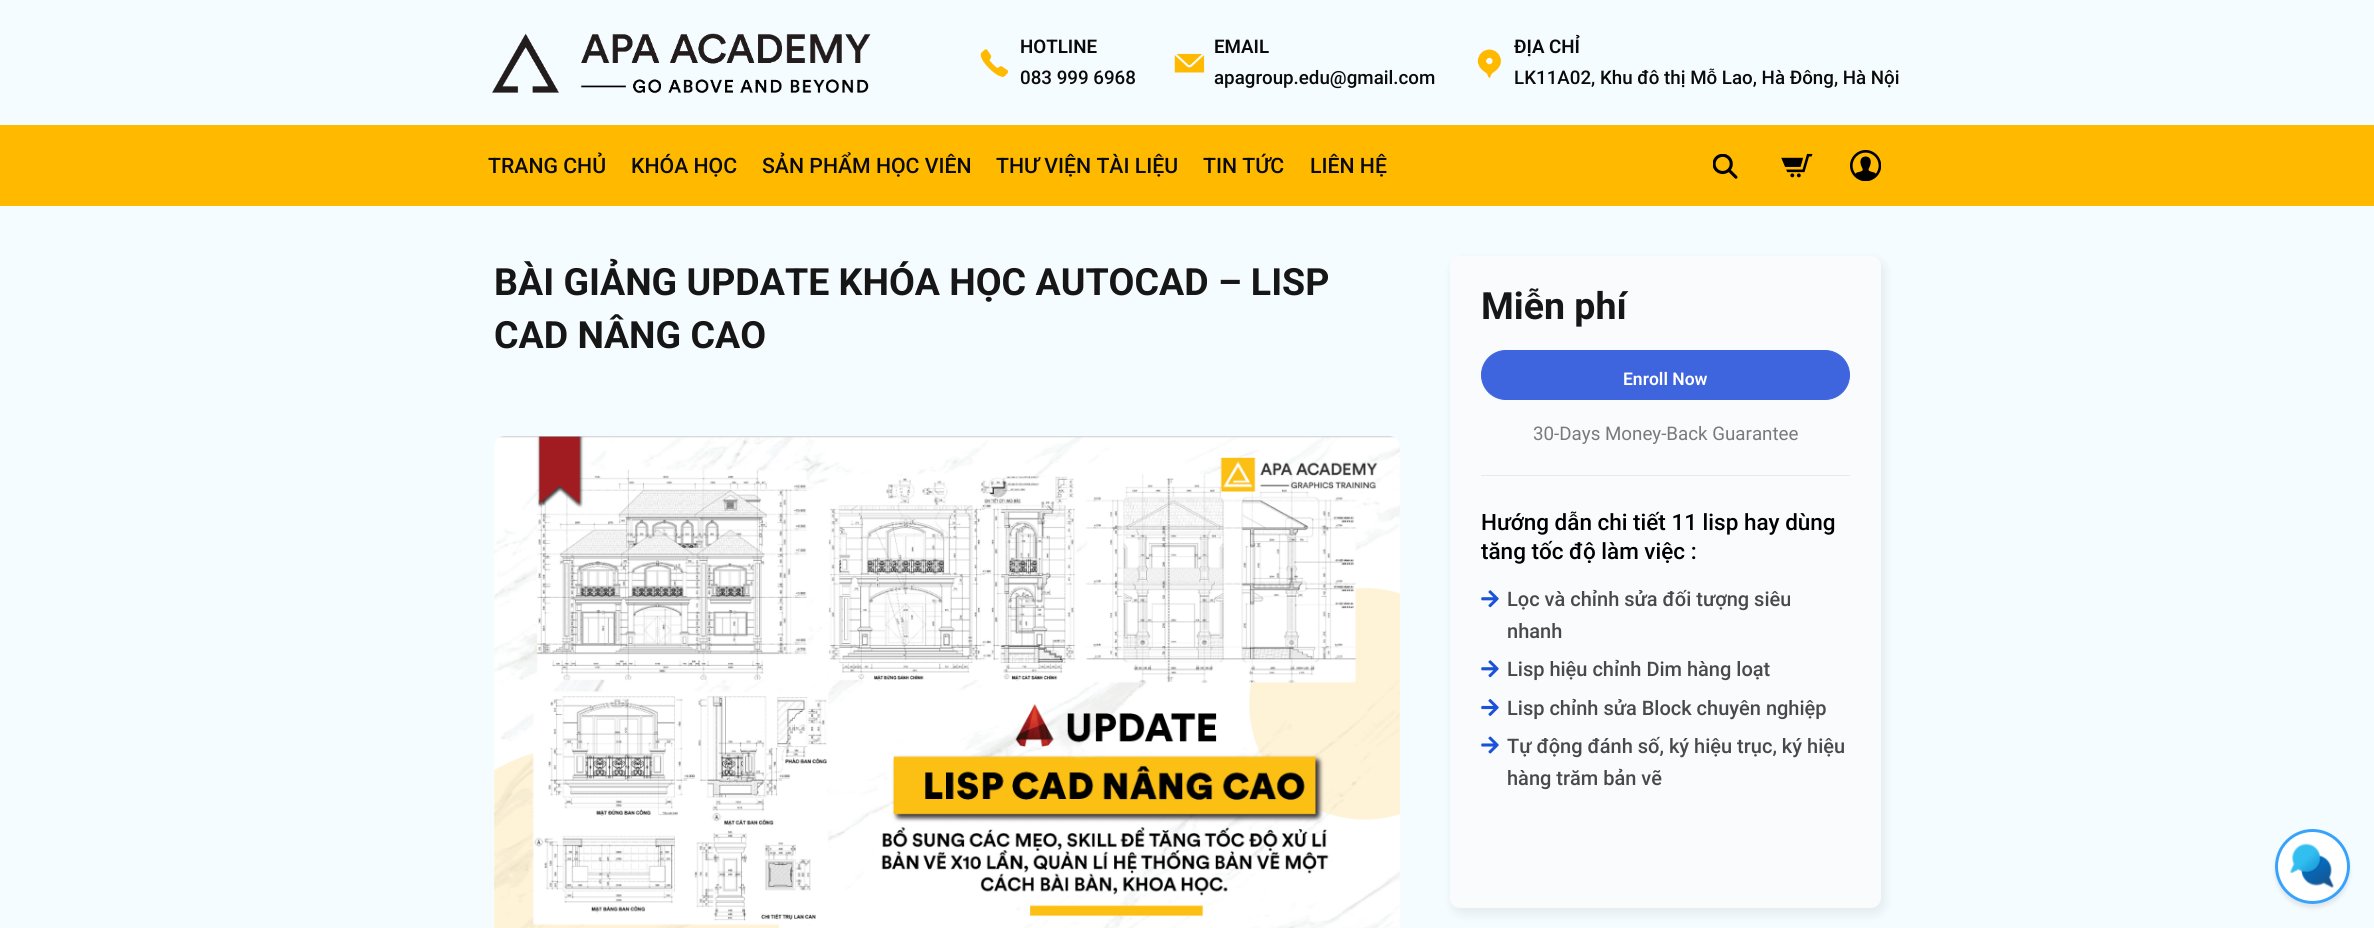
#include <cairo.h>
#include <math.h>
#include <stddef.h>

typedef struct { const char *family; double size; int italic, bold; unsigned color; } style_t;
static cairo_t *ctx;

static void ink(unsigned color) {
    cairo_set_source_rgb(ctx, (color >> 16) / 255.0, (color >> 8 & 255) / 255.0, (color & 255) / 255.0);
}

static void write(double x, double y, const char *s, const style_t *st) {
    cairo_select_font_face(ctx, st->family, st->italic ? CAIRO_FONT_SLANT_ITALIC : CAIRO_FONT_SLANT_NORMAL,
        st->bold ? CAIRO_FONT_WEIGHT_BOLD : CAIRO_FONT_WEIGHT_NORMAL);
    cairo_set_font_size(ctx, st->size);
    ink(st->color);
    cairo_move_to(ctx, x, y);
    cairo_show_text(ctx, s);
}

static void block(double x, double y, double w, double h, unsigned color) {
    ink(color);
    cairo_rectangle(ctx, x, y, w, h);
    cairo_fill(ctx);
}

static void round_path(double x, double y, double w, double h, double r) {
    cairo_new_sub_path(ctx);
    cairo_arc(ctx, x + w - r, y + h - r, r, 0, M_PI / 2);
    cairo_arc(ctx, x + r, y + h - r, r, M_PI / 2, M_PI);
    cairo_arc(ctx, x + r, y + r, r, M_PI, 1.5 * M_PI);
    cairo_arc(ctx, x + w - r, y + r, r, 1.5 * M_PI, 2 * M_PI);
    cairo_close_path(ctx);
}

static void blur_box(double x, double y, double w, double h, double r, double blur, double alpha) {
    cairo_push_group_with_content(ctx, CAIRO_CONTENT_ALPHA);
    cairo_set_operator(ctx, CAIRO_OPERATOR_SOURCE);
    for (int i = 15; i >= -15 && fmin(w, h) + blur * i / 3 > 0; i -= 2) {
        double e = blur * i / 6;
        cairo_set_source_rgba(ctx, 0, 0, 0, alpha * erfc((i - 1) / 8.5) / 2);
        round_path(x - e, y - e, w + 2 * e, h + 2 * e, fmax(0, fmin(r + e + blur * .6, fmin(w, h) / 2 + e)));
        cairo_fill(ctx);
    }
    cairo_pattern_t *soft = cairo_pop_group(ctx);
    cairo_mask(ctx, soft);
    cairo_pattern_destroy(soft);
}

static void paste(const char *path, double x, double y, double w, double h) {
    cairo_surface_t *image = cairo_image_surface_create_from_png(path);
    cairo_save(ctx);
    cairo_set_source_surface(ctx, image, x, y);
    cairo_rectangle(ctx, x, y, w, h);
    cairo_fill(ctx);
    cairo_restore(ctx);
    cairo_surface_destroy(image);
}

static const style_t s1 = {"Roboto SemiBold", 18.75, 0, 0, 0x0a0a0a};
static const style_t s2 = {"Roboto Medium", 18.75, 0, 0, 0x0a0a0a};
static const style_t s3 = {"Roboto Medium", 21.25, 0, 0, 0x0a0a0a};
static const style_t s4 = {"Roboto", 37.5, 0, 1, 0x161616};
static const style_t s5 = {"Roboto SemiBold", 17.5, 0, 0, 0xffffff};
static const style_t s6 = {"Roboto", 18.75, 0, 0, 0x7a7a7a};
static const style_t s7 = {"Roboto Medium", 22.5, 0, 0, 0x000000};
static const style_t s8 = {"Roboto Medium", 20, 0, 0, 0x494949};

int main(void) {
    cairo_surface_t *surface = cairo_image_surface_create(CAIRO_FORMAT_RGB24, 2374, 928);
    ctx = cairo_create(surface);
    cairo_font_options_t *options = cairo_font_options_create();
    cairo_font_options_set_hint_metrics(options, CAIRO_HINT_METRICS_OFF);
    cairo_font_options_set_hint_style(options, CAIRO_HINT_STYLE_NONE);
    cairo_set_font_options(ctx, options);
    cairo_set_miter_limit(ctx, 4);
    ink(0xf5fcff);
    cairo_paint(ctx);
    paste("pic1.png", 492, 33, 379, 61);
    paste("pic2.png", 980, 49, 28, 28);
    write(1020, 53, "HOTLINE", &s1);
    write(1020, 84, "083 999 6968", &s2);
    paste("pic3.png", 1174, 53, 31, 20);
    write(1214, 53, "EMAIL", &s1);
    write(1214, 84, "apagroup.edu@gmail.com", &s2);
    paste("pic4.png", 1477, 49, 25, 29);
    write(1514, 53, "ĐỊA CHỈ", &s1);
    write(1514, 84, "LK11A02, Khu đô thị Mỗ Lao, Hà Đông, Hà Nội", &s2);
    block(0, 125, 2374, 81, 0xffba00);
    write(488, 173, "TRANG CHỦ", &s3);
    write(631, 173, "KHÓA HỌC", &s3);
    write(762, 173, "SẢN PHẨM HỌC VIÊN", &s3);
    write(996, 173, "THƯ VIỆN TÀI LIỆU", &s3);
    write(1203, 173, "TIN TỨC", &s3);
    write(1310, 173, "LIÊN HỆ", &s3);
    paste("pic5.png", 1713, 154, 25, 25);
    paste("pic6.png", 1781, 153, 32, 25);
    paste("pic7.png", 1850, 150, 31, 31);
    write(494, 295, "BÀI GIẢNG UPDATE KHÓA HỌC AUTOCAD – LISP", &s4);
    write(494, 348, "CAD NÂNG CAO", &s4);
    paste("pic8.png", 494, 436, 906, 492);
    ink(0x000000);
    blur_box(1453, 261, 431, 652, 10, 6, 0.08);
    ink(0xfafbfc);
    round_path(1450, 256, 431, 652, 10);
    cairo_fill(ctx);
    write(1481, 319, "Miễn phí", &s4);
    ink(0x3e64de);
    round_path(1481.5, 350.5, 368, 49, 24.5);
    cairo_fill_preserve(ctx);
    cairo_set_line_width(ctx, 1);
    cairo_stroke(ctx);
    write(1623, 385, "Enroll Now", &s5);
    write(1533, 440, "30-Days Money-Back Guarantee", &s6);
    block(1481, 475, 369, 1, 0xe1ebf0);
    write(1481, 530, "Hướng dẫn chi tiết 11 lisp hay dùng", &s7);
    write(1481, 559, "tăng tốc độ làm việc :", &s7);
    paste("pic9.png", 1481, 590, 18, 18);
    write(1507, 606, "Lọc và chỉnh sửa đối tượng siêu", &s8);
    write(1507, 638, "nhanh", &s8);
    paste("pic9.png", 1481, 660, 18, 18);
    write(1507, 676, "Lisp hiệu chỉnh Dim hàng loạt", &s8);
    paste("pic10.png", 1481, 699, 18, 17);
    write(1507, 715, "Lisp chỉnh sửa Block chuyên nghiệp", &s8);
    paste("pic11.png", 1481, 736, 18, 18);
    write(1507, 753, "Tự động đánh số, ký hiệu trục, ký hiệu", &s8);
    write(1507, 785, "hàng trăm bản vẽ", &s8);
    ink(0x000000);
    blur_box(2275, 833, 75, 75, 37.5, 2, 0.09);
    ink(0xffffff);
    cairo_arc(ctx, 2312.5, 866.5, 37.5, 0, 2 * M_PI);
    cairo_fill(ctx);
    paste("pic12.png", 2290, 843, 44, 45);
    cairo_arc(ctx, 2312.5, 866.5, 36, 0, 2 * M_PI);
    ink(0x38a3fd);
    cairo_set_line_width(ctx, 3);
    cairo_stroke(ctx);
    cairo_surface_write_to_png(surface, "screenshot.png");
    cairo_font_options_destroy(options);
    cairo_destroy(ctx);
    cairo_surface_destroy(surface);
    return 0;
}
